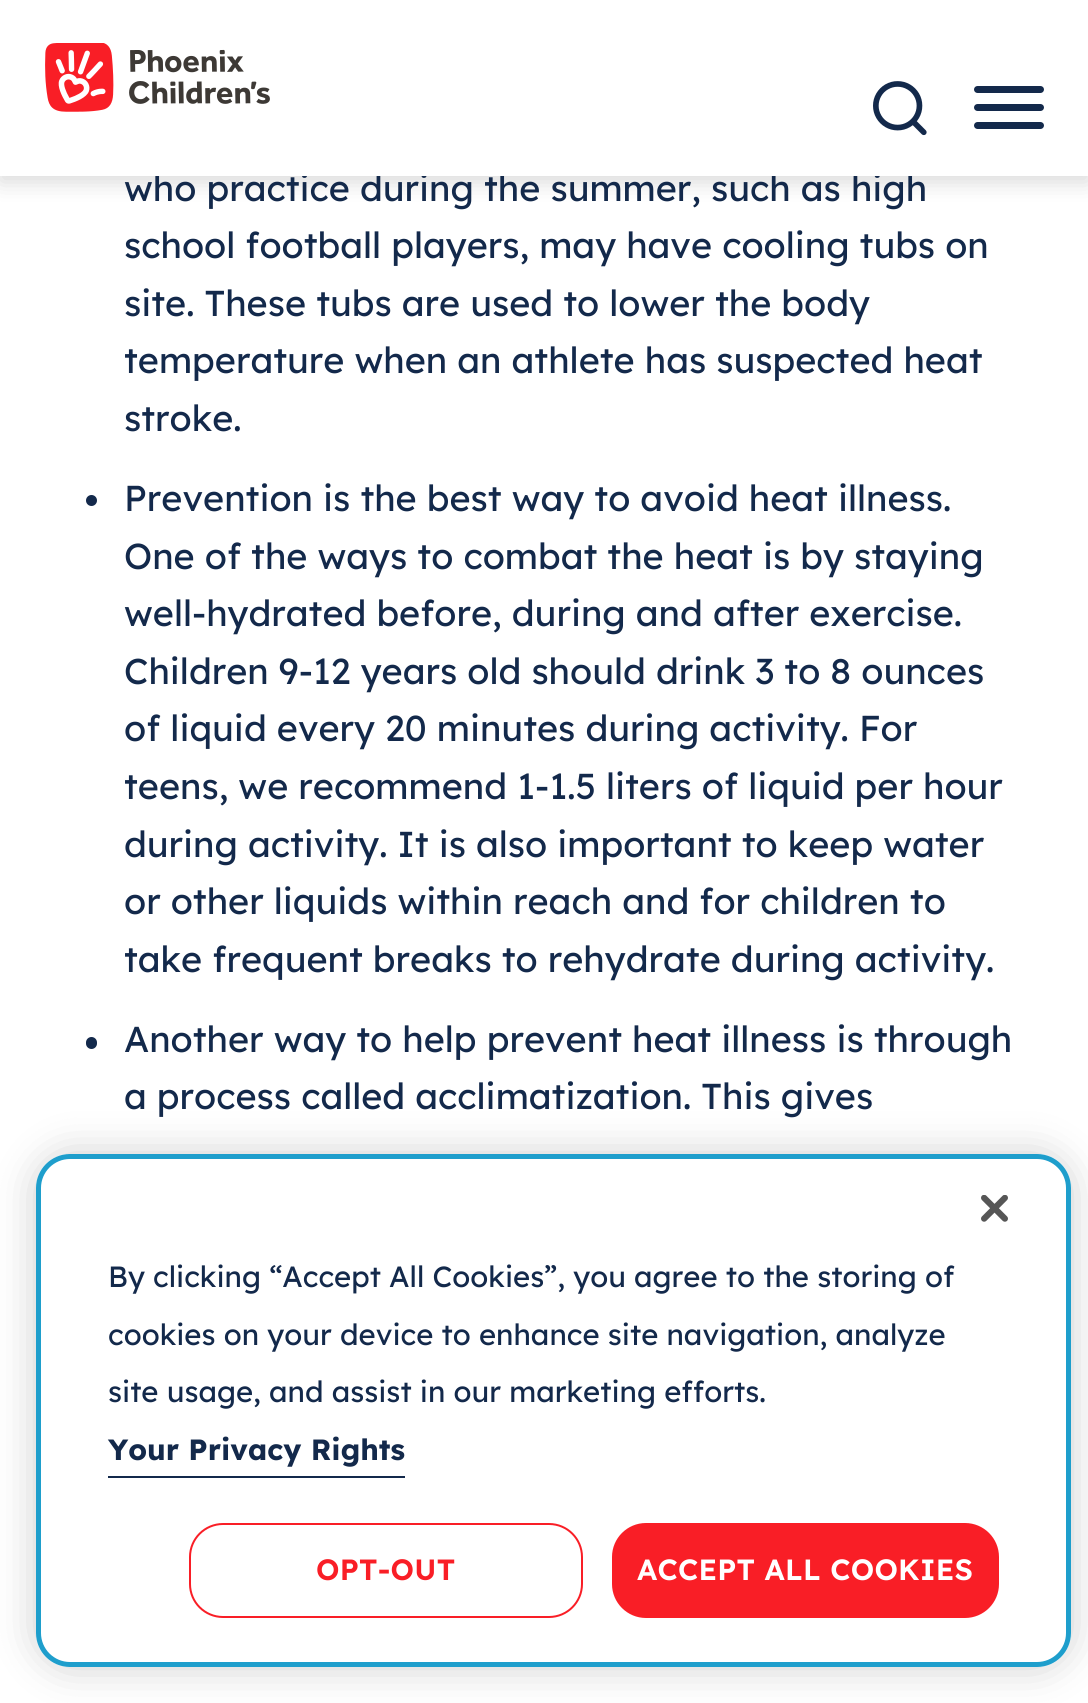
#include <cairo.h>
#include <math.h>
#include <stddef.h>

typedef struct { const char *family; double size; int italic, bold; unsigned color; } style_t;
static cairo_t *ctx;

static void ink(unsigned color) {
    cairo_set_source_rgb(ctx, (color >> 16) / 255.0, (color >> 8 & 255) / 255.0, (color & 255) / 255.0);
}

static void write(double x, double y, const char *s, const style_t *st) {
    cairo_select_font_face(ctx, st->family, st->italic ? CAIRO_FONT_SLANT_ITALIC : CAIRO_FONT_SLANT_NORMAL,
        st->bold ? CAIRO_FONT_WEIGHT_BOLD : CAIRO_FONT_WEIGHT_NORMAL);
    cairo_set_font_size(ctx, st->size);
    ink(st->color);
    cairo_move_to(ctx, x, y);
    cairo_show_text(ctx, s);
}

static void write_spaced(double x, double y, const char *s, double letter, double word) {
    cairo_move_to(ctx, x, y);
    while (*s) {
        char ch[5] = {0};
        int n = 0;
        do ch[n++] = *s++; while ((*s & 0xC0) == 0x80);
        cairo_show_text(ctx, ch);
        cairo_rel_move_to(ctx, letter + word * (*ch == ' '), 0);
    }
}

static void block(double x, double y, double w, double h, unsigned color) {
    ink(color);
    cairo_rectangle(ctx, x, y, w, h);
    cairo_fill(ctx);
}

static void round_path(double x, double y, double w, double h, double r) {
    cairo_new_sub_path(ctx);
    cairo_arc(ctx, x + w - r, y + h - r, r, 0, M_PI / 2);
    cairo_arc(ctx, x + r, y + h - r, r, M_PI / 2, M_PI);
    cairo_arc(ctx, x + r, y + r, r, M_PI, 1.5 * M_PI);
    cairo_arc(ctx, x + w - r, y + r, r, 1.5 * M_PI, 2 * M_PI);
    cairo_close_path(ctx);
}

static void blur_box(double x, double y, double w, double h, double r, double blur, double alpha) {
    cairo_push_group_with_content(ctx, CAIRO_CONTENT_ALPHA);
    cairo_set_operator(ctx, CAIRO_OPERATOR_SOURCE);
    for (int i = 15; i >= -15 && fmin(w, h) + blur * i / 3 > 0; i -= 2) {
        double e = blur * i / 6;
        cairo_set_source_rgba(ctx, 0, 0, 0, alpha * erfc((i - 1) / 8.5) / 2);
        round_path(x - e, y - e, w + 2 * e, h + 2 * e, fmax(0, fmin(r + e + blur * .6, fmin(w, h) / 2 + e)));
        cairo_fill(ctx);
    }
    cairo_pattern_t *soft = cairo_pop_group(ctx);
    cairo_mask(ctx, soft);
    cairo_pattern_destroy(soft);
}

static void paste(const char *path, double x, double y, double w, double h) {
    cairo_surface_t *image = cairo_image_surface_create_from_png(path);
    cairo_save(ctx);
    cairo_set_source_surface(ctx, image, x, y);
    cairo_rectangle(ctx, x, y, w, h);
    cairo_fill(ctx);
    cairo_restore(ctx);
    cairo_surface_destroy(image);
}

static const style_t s1 = {"Lexend", 36, 0, 0, 0x13294b};
static const style_t s2 = {"Lexend", 29.25, 0, 0, 0x13294b};
static const style_t s3 = {"Lexend", 29.25, 0, 1, 0x13294b};

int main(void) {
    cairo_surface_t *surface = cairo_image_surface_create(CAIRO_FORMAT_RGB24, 1088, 1703);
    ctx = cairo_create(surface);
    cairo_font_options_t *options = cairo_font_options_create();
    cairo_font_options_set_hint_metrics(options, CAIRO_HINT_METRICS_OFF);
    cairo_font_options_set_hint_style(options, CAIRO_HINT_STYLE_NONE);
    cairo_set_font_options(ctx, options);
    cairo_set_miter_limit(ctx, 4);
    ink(0xffffff);
    cairo_paint(ctx);
    ink(0x000000);
    blur_box(0, 7, 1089, 175, 0, 11, 0.15);
    write(124, 201, "who practice during the summer, such as high", &s1);
    block(0, 0, 1088, 176, 0xffffff);
    paste("pic1.png", 45, 43, 225, 69);
    paste("pic2.png", 873, 81, 54, 55);
    ink(0x13294b);
    round_path(974, 86, 70, 7, 3.5);
    cairo_fill(ctx);
    round_path(974, 104, 70, 7, 3.5);
    cairo_fill(ctx);
    round_path(974, 122, 70, 7, 3.5);
    cairo_fill(ctx);
    write(124, 258, "school football players, may have cooling tubs on", &s1);
    write(124, 316, "site. These tubs are used to lower the body", &s1);
    write(124, 373, "temperature when an athlete has suspected heat", &s1);
    write(124, 431, "stroke.", &s1);
    cairo_new_path(ctx);
    cairo_arc(ctx, 91.5, 500.5, 5.5, 0, 2 * M_PI);
    cairo_fill(ctx);
    write(124, 511, "Prevention is the best way to avoid heat illness.", &s1);
    write(124, 569, "One of the ways to combat the heat is by staying", &s1);
    write(124, 626, "well-hydrated before, during and after exercise.", &s1);
    write(124, 684, "Children 9-12 years old should drink 3 to 8 ounces", &s1);
    write(124, 741, "of liquid every 20 minutes during activity. For", &s1);
    write(124, 799, "teens, we recommend 1-1.5 liters of liquid per hour", &s1);
    write(124, 857, "during activity. It is also important to keep water", &s1);
    write(124, 914, "or other liquids within reach and for children to", &s1);
    write(124, 972, "take frequent breaks to rehydrate during activity.", &s1);
    round_path(86, 1037, 11, 12, 5.5);
    cairo_fill(ctx);
    write(124, 1052, "Another way to help prevent heat illness is through", &s1);
    write(124, 1109, "a process called acclimatization. This gives", &s1);
    cairo_save(ctx);
    cairo_set_fill_rule(ctx, CAIRO_FILL_RULE_EVEN_ODD);
    cairo_new_path(ctx);
    cairo_move_to(ctx, 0, 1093);
    cairo_line_to(ctx, 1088, 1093);
    cairo_line_to(ctx, 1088, 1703);
    cairo_line_to(ctx, 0, 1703);
    cairo_close_path(ctx);
    cairo_move_to(ctx, 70, 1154);
    cairo_line_to(ctx, 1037, 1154);
    cairo_curve_to(ctx, 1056, 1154, 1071, 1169, 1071, 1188);
    cairo_line_to(ctx, 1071, 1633);
    cairo_curve_to(ctx, 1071, 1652, 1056, 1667, 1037, 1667);
    cairo_line_to(ctx, 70, 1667);
    cairo_curve_to(ctx, 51, 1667, 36, 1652, 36, 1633);
    cairo_line_to(ctx, 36, 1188);
    cairo_curve_to(ctx, 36, 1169, 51, 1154, 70, 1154);
    cairo_close_path(ctx);
    cairo_clip(ctx);
    ink(0x000000);
    blur_box(36, 1154, 1035, 513, 34, 20, 0.2);
    cairo_restore(ctx);
    cairo_set_source_rgba(ctx, 1, 1, 1, 0.9);
    round_path(38.5, 1156.5, 1030, 508, 31.5);
    cairo_fill_preserve(ctx);
    ink(0x1e9ecc);
    cairo_set_line_width(ctx, 5);
    cairo_stroke(ctx);
    paste("pic3.png", 981, 1195, 27, 27);
    write(108, 1287, "By clicking “Accept All Cookies”, you agree to the storing of", &s2);
    write(108, 1345, "cookies on your device to enhance site navigation, analyze", &s2);
    write(108, 1402, "site usage, and assist in our marketing efforts.", &s2);
    write(108, 1460, "Your Privacy Rights", &s3);
    block(108, 1476, 297, 2, 0x13294b);
    round_path(190, 1524, 392, 93, 33);
    ink(0xf91e26);
    cairo_set_line_width(ctx, 2);
    cairo_stroke(ctx);
    cairo_select_font_face(ctx, "Lexend SemiBold", CAIRO_FONT_SLANT_NORMAL, CAIRO_FONT_WEIGHT_NORMAL);
    write_spaced(316, 1580, "OPT-OUT", 0.25, 0);
    round_path(613, 1524, 385, 93, 33);
    cairo_fill_preserve(ctx);
    cairo_stroke(ctx);
    ink(0xffffff);
    write_spaced(637, 1580, "ACCEPT ALL COOKIES", 0.25, 0);
    cairo_surface_write_to_png(surface, "screenshot.png");
    cairo_font_options_destroy(options);
    cairo_destroy(ctx);
    cairo_surface_destroy(surface);
    return 0;
}
